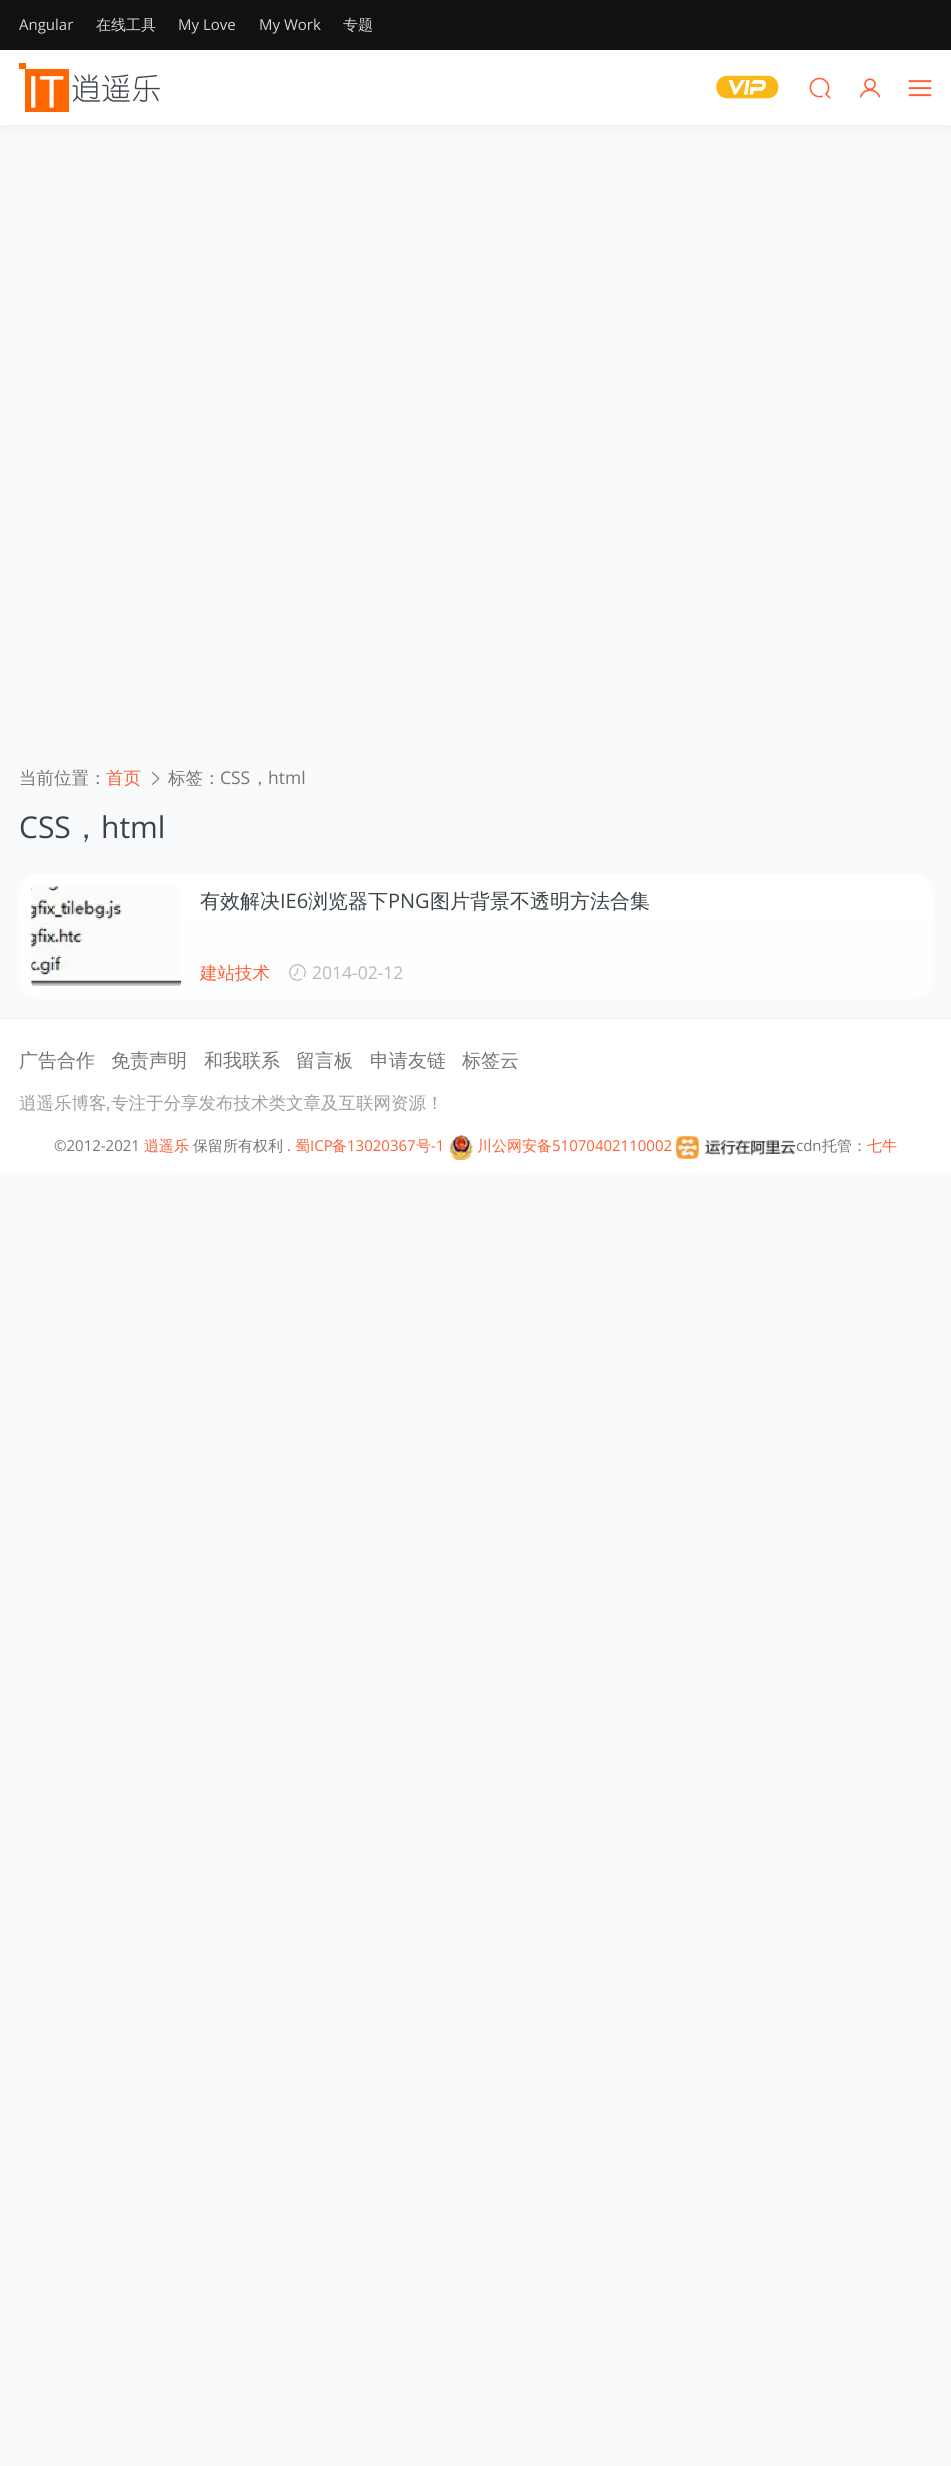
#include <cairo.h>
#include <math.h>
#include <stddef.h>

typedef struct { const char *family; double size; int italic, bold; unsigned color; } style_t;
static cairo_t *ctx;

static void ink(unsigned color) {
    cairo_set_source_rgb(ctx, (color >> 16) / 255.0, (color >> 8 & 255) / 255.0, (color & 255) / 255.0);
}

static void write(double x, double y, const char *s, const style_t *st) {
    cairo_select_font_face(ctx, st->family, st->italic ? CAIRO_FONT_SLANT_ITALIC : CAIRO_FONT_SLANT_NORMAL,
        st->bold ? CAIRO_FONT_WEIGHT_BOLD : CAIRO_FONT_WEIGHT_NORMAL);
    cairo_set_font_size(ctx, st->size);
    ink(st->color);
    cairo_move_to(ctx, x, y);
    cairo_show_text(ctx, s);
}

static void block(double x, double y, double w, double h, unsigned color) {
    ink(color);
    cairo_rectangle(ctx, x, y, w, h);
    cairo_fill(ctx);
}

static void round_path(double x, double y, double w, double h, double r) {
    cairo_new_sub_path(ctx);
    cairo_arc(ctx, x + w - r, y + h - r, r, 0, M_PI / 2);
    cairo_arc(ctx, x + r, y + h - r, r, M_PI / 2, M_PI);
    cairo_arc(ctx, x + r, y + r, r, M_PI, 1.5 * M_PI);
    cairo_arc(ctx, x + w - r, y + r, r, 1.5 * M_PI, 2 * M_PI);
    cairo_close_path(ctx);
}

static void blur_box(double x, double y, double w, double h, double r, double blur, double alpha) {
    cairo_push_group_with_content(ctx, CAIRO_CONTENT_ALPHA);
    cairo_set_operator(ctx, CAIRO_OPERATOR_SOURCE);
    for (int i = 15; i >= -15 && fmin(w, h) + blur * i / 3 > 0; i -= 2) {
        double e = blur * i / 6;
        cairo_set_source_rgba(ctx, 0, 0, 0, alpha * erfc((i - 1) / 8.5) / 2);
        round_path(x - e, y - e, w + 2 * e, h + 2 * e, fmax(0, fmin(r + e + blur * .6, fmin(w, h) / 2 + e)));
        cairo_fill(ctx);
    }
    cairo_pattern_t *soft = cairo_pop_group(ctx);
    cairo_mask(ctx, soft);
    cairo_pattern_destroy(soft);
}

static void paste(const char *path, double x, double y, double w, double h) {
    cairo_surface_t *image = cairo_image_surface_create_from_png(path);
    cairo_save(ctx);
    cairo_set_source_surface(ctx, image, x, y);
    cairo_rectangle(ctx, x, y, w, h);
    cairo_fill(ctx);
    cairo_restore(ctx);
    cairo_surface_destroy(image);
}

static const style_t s1 = {"Open Sans", 15, 0, 0, 0xd4d4d5};
static const style_t s2 = {"WenQuanYi Zen Hei Medium", 15, 0, 0, 0xd4d4d5};
static const style_t s3 = {"WenQuanYi Zen Hei Medium", 17.5, 0, 0, 0x757575};
static const style_t s4 = {"WenQuanYi Zen Hei Medium", 17.5, 0, 0, 0xff5f33};
static const style_t s5 = {"Open Sans", 17.5, 0, 0, 0x757575};
static const style_t s6 = {"Open Sans", 30, 0, 0, 0x3c4248};
static const style_t s7 = {"WenQuanYi Zen Hei Medium", 30, 0, 0, 0x3c4248};
static const style_t s8 = {"WenQuanYi Zen Hei Medium", 20, 0, 0, 0x3c4248};
static const style_t s9 = {"Open Sans", 20, 0, 0, 0x3c4248};
static const style_t s10 = {"Open Sans", 17.5, 0, 0, 0xb9b9ba};
static const style_t s11 = {"WenQuanYi Zen Hei Medium", 19, 0, 0, 0x757575};
static const style_t s12 = {"WenQuanYi Zen Hei Medium", 17.5, 0, 0, 0x9e9e9e};
static const style_t s13 = {"Open Sans", 17.5, 0, 0, 0x9e9e9e};
static const style_t s14 = {"Open Sans", 15, 0, 0, 0x757575};
static const style_t s15 = {"WenQuanYi Zen Hei Medium", 15, 0, 0, 0xff5f33};
static const style_t s16 = {"WenQuanYi Zen Hei Medium", 15, 0, 0, 0x757575};
static const style_t s17 = {"Open Sans", 15, 0, 0, 0xff5f33};

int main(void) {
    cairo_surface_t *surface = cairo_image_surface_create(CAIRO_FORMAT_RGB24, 951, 2466);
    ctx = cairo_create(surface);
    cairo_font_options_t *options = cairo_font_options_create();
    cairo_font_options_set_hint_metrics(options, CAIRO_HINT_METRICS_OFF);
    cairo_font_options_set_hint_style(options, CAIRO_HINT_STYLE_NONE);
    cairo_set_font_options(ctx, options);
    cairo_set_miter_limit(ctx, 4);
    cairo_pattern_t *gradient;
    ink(0xf8fafc);
    cairo_paint(ctx);
    block(0, 0, 951, 50, 0x111111);
    ink(0x000000);
    blur_box(0, 50, 951, 75, 0, 11, 0.06);
    block(0, 50, 951, 75, 0xffffff);
    paste("pic1.png", 19, 63, 141, 49);
    paste("pic2.png", 716, 75, 63, 24);
    paste("pic3.png", 809, 77, 22, 22);
    paste("pic4.png", 859, 78, 22, 20);
    paste("pic5.png", 908, 80, 24, 17);
    write(19, 30, "Angular", &s1);
    write(96, 30, "在线工具", &s2);
    write(178, 30, "My Love", &s1);
    write(259, 30, "My Work", &s1);
    write(343, 30, "专题", &s2);
    write(19, 784, "当前位置：", &s3);
    write(106, 784, "首页", &s4);
    paste("pic6.png", 151, 771, 9, 14);
    write(168, 784, "标签：", &s3);
    write(220, 784, "CSS", &s5);
    write(251, 784, "，", &s3);
    write(268, 784, "html", &s5);
    write(19, 838, "CSS", &s6);
    write(71, 838, "，", &s7);
    write(101, 838, "html", &s6);
    gradient = cairo_pattern_create_linear(476, 874, 476, 999);
    cairo_pattern_add_color_stop_rgba(gradient, 0, 1, 1, 1, 1);
    cairo_pattern_add_color_stop_rgba(gradient, 1, 1, 1, 1, 0.7);
    cairo_set_source(ctx, gradient);
    cairo_pattern_destroy(gradient);
    round_path(19, 874, 914, 125, 19);
    cairo_fill(ctx);
    paste("pic7.png", 31, 886, 151, 100);
    write(200, 908, "有效解决", &s8);
    write(280, 908, "IE6", &s9);
    write(308, 908, "浏览器下", &s8);
    write(388, 908, "PNG", &s9);
    write(430, 908, "图片背景不透明方法合集", &s8);
    write(200, 979, "建站技术", &s4);
    paste("pic8.png", 289, 964, 17, 17);
    write(312, 979, "2014-02-12", &s10);
    block(0, 1019, 951, 156, 0xffffff);
    block(0, 1018, 951, 1, 0xeeeeee);
    write(19, 1067, "广告合作", &s11);
    write(111, 1067, "免责声明", &s11);
    write(204, 1067, "和我联系", &s11);
    write(296, 1067, "留言板", &s11);
    write(370, 1067, "申请友链", &s11);
    write(462, 1067, "标签云", &s11);
    write(19, 1109, "逍遥乐博客", &s12);
    write(106, 1109, ",", &s13);
    write(111, 1109, "专注于分享发布技术类文章及互联网资源！", &s12);
    write(54, 1151, "©2012-2021", &s14);
    write(144, 1151, "逍遥乐", &s15);
    write(193, 1151, "保留所有权利", &s16);
    write(287, 1151, ".", &s14);
    write(295, 1151, "蜀", &s15);
    write(310, 1151, "ICP", &s17);
    write(332, 1151, "备", &s15);
    write(347, 1151, "13020367", &s17);
    write(416, 1151, "号", &s15);
    write(431, 1151, "-1", &s17);
    paste("pic9.png", 449, 1135, 24, 25);
    write(477, 1151, "川公网安备", &s15);
    write(552, 1151, "51070402110002", &s17);
    paste("pic10.png", 676, 1136, 120, 23);
    write(796, 1151, "cdn", &s14);
    write(822, 1151, "托管：", &s16);
    write(867, 1151, "七牛", &s15);
    cairo_surface_write_to_png(surface, "screenshot.png");
    cairo_font_options_destroy(options);
    cairo_destroy(ctx);
    cairo_surface_destroy(surface);
    return 0;
}
